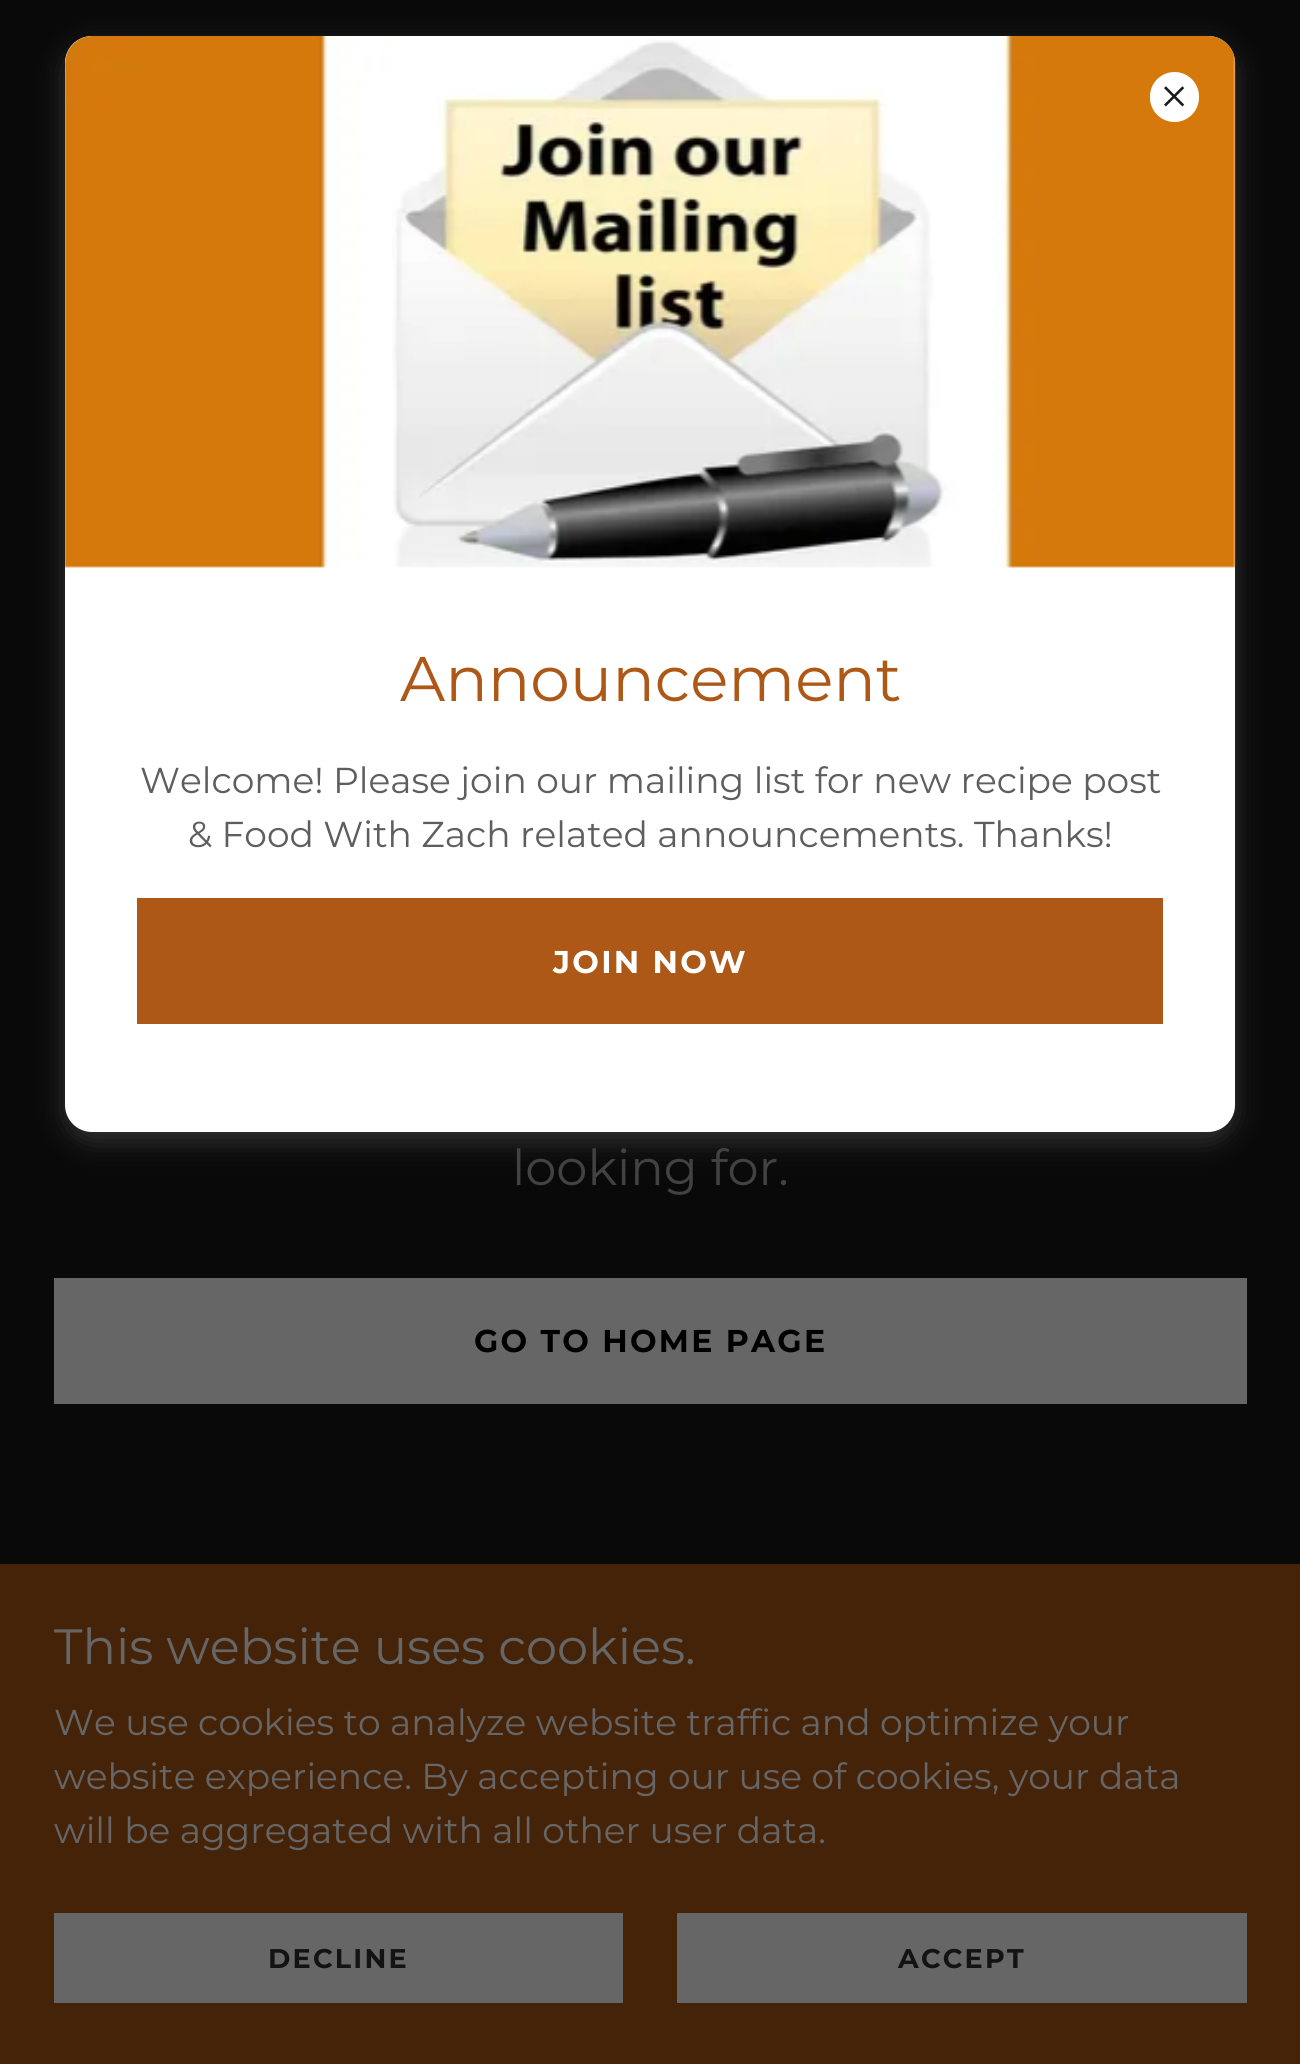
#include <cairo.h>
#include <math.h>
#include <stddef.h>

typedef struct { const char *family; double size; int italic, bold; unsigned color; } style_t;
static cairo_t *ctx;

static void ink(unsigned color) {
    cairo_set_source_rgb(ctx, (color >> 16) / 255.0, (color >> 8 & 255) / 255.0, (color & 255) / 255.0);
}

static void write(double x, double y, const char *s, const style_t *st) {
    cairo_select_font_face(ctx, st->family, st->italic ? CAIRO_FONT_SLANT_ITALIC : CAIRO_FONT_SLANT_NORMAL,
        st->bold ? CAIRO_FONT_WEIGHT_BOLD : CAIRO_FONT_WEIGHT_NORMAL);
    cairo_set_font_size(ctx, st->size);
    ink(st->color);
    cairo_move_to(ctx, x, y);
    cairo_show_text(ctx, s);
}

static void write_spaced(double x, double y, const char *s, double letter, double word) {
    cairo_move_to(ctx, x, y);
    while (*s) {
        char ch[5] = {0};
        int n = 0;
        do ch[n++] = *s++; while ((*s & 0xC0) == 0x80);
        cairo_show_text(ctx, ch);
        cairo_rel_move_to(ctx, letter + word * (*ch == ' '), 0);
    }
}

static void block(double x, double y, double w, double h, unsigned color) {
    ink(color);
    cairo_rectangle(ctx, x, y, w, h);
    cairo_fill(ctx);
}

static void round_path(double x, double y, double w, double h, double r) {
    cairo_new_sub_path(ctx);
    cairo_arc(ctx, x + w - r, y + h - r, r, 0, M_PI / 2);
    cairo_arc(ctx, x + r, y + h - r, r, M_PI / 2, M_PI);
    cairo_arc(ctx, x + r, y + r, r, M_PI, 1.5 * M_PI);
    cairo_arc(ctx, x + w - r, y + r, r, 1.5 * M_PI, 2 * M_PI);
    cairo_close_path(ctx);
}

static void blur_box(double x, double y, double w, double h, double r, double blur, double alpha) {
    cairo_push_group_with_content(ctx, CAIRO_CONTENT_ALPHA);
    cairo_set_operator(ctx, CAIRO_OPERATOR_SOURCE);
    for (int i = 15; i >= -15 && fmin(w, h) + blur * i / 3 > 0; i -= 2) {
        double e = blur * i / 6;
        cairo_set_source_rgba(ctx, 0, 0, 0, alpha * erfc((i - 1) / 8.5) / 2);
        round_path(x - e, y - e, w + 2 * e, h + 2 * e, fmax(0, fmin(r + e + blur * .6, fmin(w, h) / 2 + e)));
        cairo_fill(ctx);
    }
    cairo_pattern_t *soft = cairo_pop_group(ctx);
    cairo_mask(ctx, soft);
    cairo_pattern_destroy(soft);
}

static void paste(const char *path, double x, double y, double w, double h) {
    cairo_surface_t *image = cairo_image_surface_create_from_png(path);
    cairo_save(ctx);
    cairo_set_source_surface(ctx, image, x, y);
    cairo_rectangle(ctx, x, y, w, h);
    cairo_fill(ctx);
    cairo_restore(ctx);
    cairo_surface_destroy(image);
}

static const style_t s1 = {"Montserrat", 63, 0, 0, 0xad5817};
static const style_t s2 = {"Montserrat", 36, 0, 0, 0x5e5e5e};
static const style_t s3 = {"Montserrat", 49.5, 0, 0, 0x424242};
static const style_t s4 = {"Montserrat", 49.5, 0, 0, 0x666666};
static const style_t s5 = {"Montserrat", 36, 0, 0, 0x666666};

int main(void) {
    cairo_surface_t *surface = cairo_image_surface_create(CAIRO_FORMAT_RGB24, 1300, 2064);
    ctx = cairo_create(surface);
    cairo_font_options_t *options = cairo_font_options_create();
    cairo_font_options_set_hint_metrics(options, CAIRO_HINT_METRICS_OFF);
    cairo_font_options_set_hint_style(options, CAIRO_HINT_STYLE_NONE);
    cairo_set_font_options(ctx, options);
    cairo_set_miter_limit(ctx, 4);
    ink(0x090909);
    cairo_paint(ctx);
    ink(0x757575);
    blur_box(65, 45, 1170, 1096, 27, 13.5, 0.4);
    ink(0xffffff);
    round_path(65, 36, 1170, 1096, 27);
    cairo_fill(ctx);
    paste("pic2.png", 65, 36, 1171, 532);
    round_path(1150, 72, 49, 50, 24.5);
    cairo_fill(ctx);
    paste("pic1.png", 1164, 86, 21, 21);
    write(400, 701, "Announcement", &s1);
    write(140, 793, "Welcome! Please join our mailing list for new recipe post", &s2);
    write(188, 847, "& Food With Zach related announcements. Thanks!", &s2);
    block(137, 898, 1026, 126, 0xad5817);
    cairo_select_font_face(ctx, "Montserrat", CAIRO_FONT_SLANT_NORMAL, CAIRO_FONT_WEIGHT_BOLD);
    cairo_set_font_size(ctx, 31.5);
    ink(0xffffff);
    write_spaced(553, 973, "JOIN NOW", 2.25, 0);
    write(512, 1185, "looking for.", &s3);
    block(54, 1278, 1193, 126, 0x666666);
    cairo_select_font_face(ctx, "Montserrat", CAIRO_FONT_SLANT_NORMAL, CAIRO_FONT_WEIGHT_BOLD);
    cairo_set_font_size(ctx, 31.5);
    ink(0x000000);
    write_spaced(474, 1352, "GO TO HOME PAGE", 2.25, 0);
    block(0, 1564, 1300, 500, 0x452309);
    write(54, 1664, "This website uses cookies.", &s4);
    write(54, 1735, "We use cookies to analyze website traffic and optimize your", &s5);
    write(54, 1789, "website experience. By accepting our use of cookies, your data", &s5);
    write(54, 1843, "will be aggregated with all other user data.", &s5);
    block(54, 1913, 569, 90, 0x666666);
    cairo_select_font_face(ctx, "Montserrat", CAIRO_FONT_SLANT_NORMAL, CAIRO_FONT_WEIGHT_BOLD);
    cairo_set_font_size(ctx, 27);
    ink(0x131313);
    write_spaced(268, 1968, "DECLINE", 2.25, 0);
    block(677, 1913, 570, 90, 0x666666);
    ink(0x131313);
    write_spaced(898, 1968, "ACCEPT", 2.25, 0);
    cairo_surface_write_to_png(surface, "screenshot.png");
    cairo_font_options_destroy(options);
    cairo_destroy(ctx);
    cairo_surface_destroy(surface);
    return 0;
}
